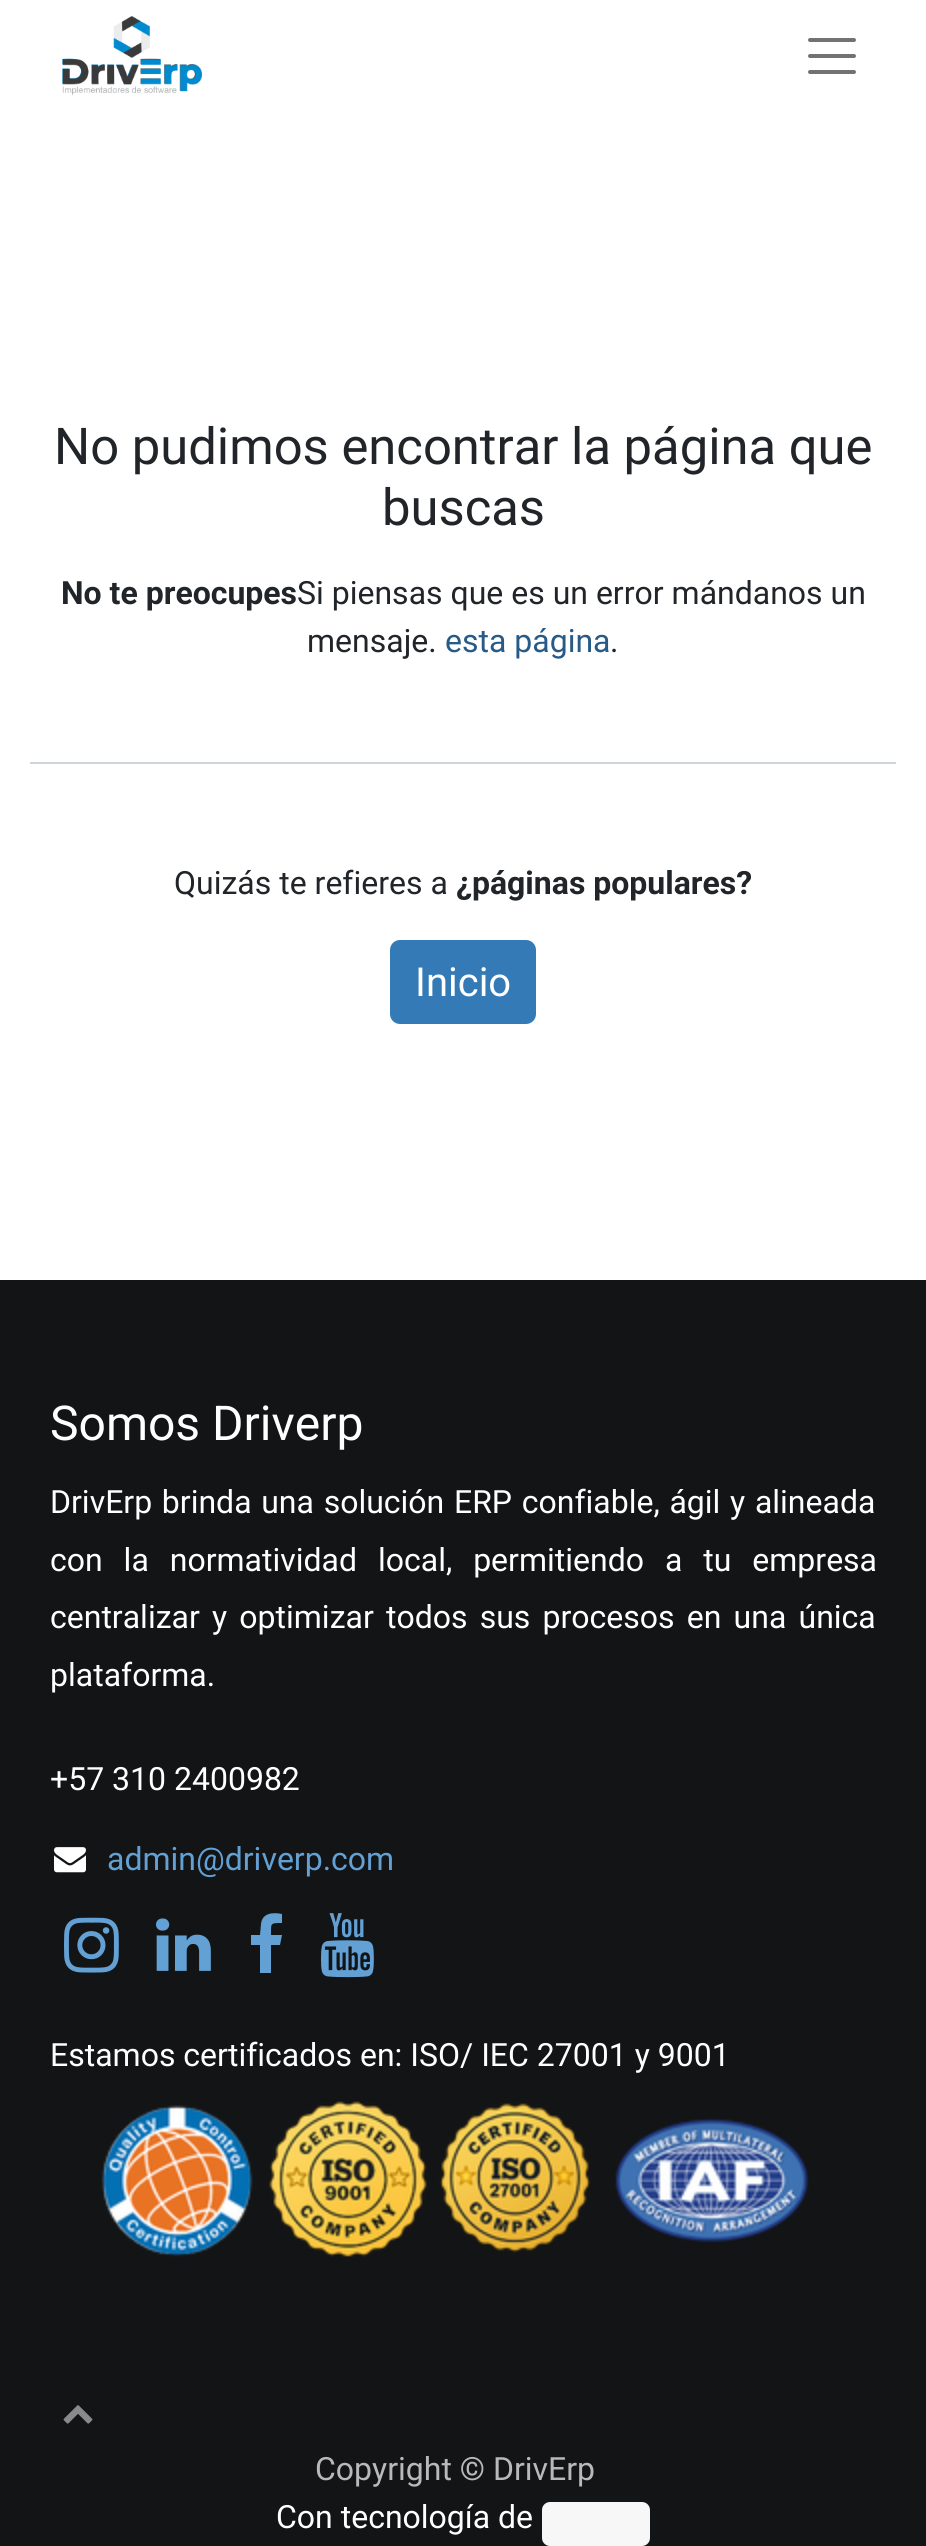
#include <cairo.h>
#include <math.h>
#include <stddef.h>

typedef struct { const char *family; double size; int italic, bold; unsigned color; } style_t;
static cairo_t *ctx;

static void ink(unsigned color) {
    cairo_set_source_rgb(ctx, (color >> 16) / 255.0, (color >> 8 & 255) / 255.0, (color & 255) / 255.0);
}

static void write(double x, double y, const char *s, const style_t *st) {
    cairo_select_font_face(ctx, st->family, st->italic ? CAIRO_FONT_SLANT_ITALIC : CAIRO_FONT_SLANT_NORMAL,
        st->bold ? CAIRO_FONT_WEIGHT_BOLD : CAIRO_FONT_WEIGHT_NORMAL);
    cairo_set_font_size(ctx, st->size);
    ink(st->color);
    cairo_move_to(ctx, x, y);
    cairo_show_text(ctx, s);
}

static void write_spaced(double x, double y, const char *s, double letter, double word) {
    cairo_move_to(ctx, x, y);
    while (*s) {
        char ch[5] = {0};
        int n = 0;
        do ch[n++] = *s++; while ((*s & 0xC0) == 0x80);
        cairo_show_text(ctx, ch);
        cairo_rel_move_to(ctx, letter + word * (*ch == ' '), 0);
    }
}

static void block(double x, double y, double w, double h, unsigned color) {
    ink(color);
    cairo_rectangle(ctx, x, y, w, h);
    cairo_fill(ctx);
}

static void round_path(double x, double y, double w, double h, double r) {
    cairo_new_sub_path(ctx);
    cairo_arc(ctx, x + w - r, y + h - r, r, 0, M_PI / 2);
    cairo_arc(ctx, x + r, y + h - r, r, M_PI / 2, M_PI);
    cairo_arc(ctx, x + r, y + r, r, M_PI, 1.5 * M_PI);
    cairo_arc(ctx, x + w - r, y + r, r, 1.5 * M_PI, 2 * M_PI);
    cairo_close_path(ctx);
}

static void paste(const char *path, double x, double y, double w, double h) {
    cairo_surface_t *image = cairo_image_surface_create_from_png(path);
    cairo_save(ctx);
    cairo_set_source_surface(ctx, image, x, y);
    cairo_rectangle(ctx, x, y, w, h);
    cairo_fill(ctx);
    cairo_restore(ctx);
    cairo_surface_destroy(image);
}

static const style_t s1 = {"Roboto", 50.75, 0, 0, 0x212529};
static const style_t s2 = {"Roboto", 32, 0, 1, 0x212529};
static const style_t s3 = {"Roboto", 32, 0, 0, 0x212529};
static const style_t s4 = {"Roboto", 32, 0, 0, 0x265a87};
static const style_t s5 = {"Roboto", 40, 0, 0, 0xffffff};
static const style_t s6 = {"Roboto", 48, 0, 0, 0xffffff};
static const style_t s7 = {"Roboto", 32, 0, 0, 0xffffff};
static const style_t s8 = {"Roboto", 32, 0, 0, 0x63a0d4};
static const style_t s9 = {"Roboto", 32, 0, 0, 0xb8b9b9};

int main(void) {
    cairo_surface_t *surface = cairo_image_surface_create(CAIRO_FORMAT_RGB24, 926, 2546);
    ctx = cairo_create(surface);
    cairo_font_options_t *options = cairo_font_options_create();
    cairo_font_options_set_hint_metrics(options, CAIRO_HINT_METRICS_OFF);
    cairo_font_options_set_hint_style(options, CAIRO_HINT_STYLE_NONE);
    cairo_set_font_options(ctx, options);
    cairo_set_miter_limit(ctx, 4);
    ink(0xffffff);
    cairo_paint(ctx);
    paste("pic1.png", 62, 16, 140, 79);
    cairo_new_path(ctx);
    cairo_move_to(ctx, 810, 40);
    cairo_line_to(ctx, 854, 40);
    cairo_move_to(ctx, 810, 56);
    cairo_line_to(ctx, 854, 56);
    cairo_move_to(ctx, 810, 72);
    cairo_line_to(ctx, 854, 72);
    ink(0x737373);
    cairo_set_line_width(ctx, 4);
    cairo_set_line_cap(ctx, CAIRO_LINE_CAP_ROUND);
    cairo_stroke(ctx);
    write(54, 464, "No pudimos encontrar la página que", &s1);
    write(382, 525, "buscas", &s1);
    write(61, 604, "No te preocupes", &s2);
    write(297, 604, "Si piensas que es un error mándanos un", &s3);
    write(307, 652, "mensaje.", &s3);
    write(445, 652, "esta página", &s4);
    write(610, 652, ".", &s3);
    block(30, 762, 866, 2, 0xced4da);
    write(174, 894, "Quizás te refieres a", &s3);
    write(456, 894, "¿páginas populares?", &s2);
    ink(0x337ab7);
    round_path(390, 940, 146, 84, 10);
    cairo_fill(ctx);
    write(415, 996, "Inicio", &s5);
    block(0, 1280, 926, 1266, 0x121416);
    write(50, 1440, "Somos Driverp", &s6);
    cairo_set_font_size(ctx, 32);
    write_spaced(50, 1513, "DrivErp brinda una solución ERP confiable, ágil y alineada", 0, 1.75);
    write_spaced(50, 1571, "con la normatividad local, permitiendo a tu empresa", 0, 13);
    write_spaced(50, 1628, "centralizar y optimizar todos sus procesos en una única", 0, 4.25);
    write(50, 1686, "plataforma.", &s7);
    write(50, 1790, "+57 310 2400982", &s7);
    paste("pic2.png", 54, 1847, 32, 26);
    write(107, 1870, "admin@driverp.com", &s8);
    paste("pic3.png", 64, 1917, 55, 56);
    paste("pic4.png", 156, 1918, 55, 53);
    cairo_new_path(ctx);
    cairo_move_to(ctx, 282, 1914);
    cairo_line_to(ctx, 282, 1923);
    cairo_curve_to(ctx, 270, 1923, 271, 1923, 271, 1935);
    cairo_line_to(ctx, 282, 1935);
    cairo_line_to(ctx, 280, 1945);
    cairo_line_to(ctx, 271, 1945);
    cairo_line_to(ctx, 271, 1973);
    cairo_line_to(ctx, 260, 1973);
    cairo_line_to(ctx, 260, 1945);
    cairo_line_to(ctx, 251, 1945);
    cairo_line_to(ctx, 251, 1935);
    cairo_line_to(ctx, 260, 1935);
    cairo_line_to(ctx, 261, 1924);
    cairo_curve_to(ctx, 262, 1913, 273, 1912, 282, 1914);
    cairo_close_path(ctx);
    cairo_fill(ctx);
    paste("pic5.png", 320, 1913, 54, 65);
    write(50, 2066, "Estamos certificados en: ISO/ IEC 27001 y 9001", &s7);
    paste("pic6.png", 101, 2101, 708, 156);
    paste("pic7.png", 63, 2405, 30, 19);
    write(315, 2480, "Copyright © DrivErp", &s9);
    write(276, 2528, "Con tecnología de", &s7);
    ink(0xf7f7f7);
    round_path(542, 2502, 108, 44, 8);
    cairo_fill(ctx);
    cairo_surface_write_to_png(surface, "screenshot.png");
    cairo_font_options_destroy(options);
    cairo_destroy(ctx);
    cairo_surface_destroy(surface);
    return 0;
}
